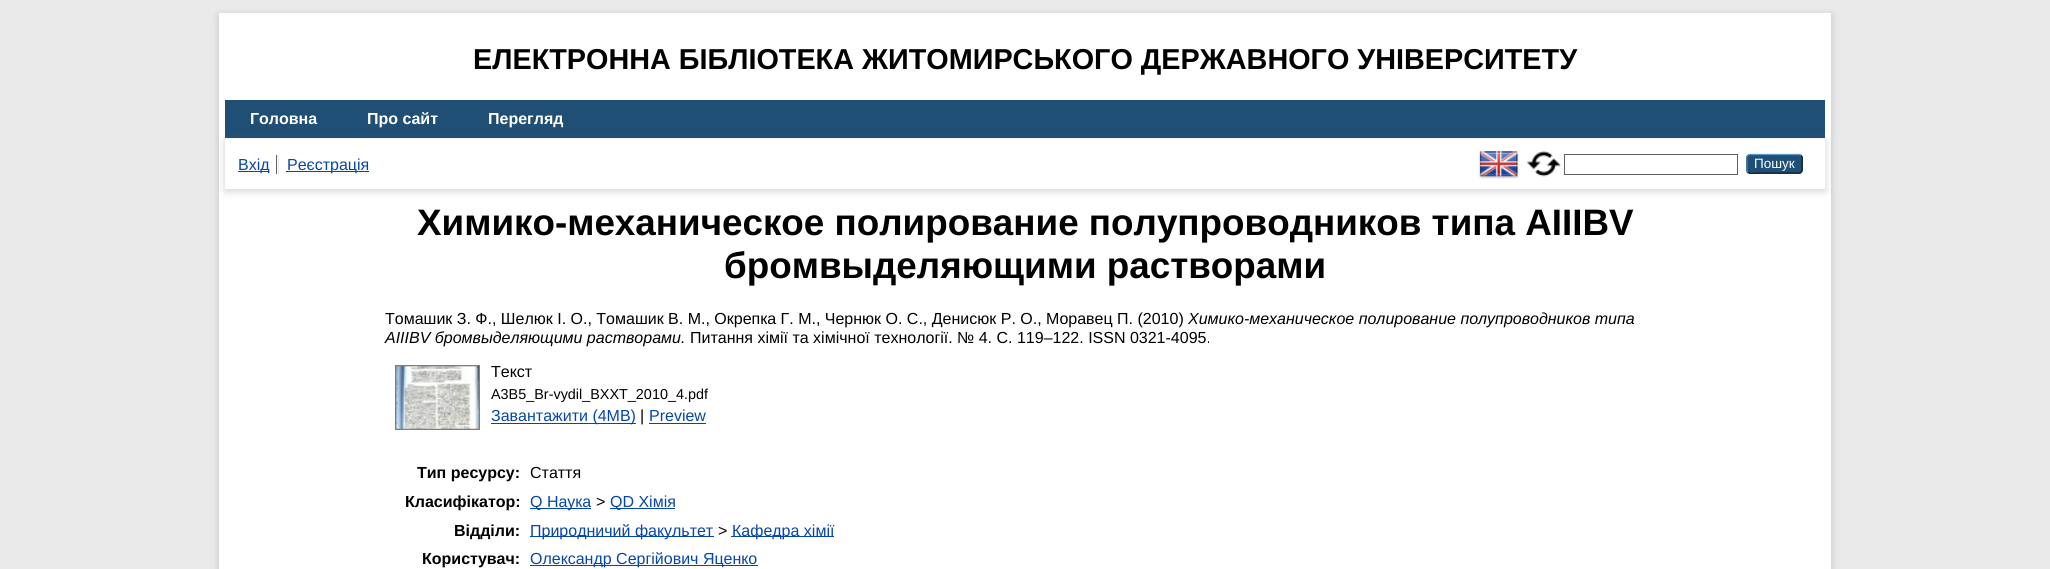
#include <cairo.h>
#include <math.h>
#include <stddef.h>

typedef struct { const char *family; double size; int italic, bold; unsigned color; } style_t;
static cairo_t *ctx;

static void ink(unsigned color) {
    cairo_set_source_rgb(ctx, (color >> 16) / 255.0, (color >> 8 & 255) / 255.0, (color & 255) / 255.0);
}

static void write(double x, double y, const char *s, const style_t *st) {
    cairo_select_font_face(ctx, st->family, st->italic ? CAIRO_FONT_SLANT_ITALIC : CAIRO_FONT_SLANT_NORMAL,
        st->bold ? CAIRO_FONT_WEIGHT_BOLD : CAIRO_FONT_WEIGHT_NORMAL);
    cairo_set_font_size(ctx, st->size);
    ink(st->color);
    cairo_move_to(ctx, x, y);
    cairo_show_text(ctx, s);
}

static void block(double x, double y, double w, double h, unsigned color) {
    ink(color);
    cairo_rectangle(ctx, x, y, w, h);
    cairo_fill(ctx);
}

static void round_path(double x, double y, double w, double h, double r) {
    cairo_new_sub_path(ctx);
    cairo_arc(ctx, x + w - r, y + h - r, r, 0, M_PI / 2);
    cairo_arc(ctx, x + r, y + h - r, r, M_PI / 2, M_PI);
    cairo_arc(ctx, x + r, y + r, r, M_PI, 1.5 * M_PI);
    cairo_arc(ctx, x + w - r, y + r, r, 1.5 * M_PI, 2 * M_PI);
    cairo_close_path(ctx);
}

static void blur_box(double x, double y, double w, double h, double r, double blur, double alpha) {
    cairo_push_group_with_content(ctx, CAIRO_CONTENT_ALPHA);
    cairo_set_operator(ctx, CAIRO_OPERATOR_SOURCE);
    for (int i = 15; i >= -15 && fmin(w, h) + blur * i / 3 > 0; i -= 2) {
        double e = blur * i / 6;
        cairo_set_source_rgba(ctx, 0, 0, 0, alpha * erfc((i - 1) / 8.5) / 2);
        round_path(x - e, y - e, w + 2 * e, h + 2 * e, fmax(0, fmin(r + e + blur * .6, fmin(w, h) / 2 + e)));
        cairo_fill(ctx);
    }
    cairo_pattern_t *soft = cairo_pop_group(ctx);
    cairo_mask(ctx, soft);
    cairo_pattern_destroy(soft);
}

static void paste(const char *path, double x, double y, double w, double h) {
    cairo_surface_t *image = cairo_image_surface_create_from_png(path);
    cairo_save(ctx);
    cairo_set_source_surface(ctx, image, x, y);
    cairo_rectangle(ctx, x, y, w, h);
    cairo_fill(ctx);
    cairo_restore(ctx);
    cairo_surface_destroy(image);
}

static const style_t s1 = {"Liberation Sans", 28.8, 0, 1, 0x000000};
static const style_t s2 = {"Liberation Sans", 16, 0, 1, 0xffffff};
static const style_t s3 = {"Liberation Sans", 16, 0, 0, 0x0645ad};
static const style_t s4 = {"Liberation Sans", 13.5, 0, 0, 0xffffff};
static const style_t s5 = {"Liberation Sans", 36.8, 0, 1, 0x000000};
static const style_t s6 = {"Liberation Sans", 16, 0, 0, 0x000000};
static const style_t s7 = {"Liberation Sans", 16, 1, 0, 0x000000};
static const style_t s8 = {"Liberation Sans", 14.4, 0, 0, 0x000000};
static const style_t s9 = {"Liberation Sans", 16, 0, 1, 0x000000};

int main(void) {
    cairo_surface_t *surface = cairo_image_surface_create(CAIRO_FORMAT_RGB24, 2050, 569);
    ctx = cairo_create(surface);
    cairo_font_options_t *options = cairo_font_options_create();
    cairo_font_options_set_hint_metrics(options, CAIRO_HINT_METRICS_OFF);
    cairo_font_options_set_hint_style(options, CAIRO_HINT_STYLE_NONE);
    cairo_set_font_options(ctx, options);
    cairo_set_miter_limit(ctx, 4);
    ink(0xeaeaea);
    cairo_paint(ctx);
    ink(0x646464);
    blur_box(219, 15, 1612, 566, 0, 4, 0.3);
    block(219, 13, 1612, 556, 0xffffff);
    write(473, 69, "ЕЛЕКТРОННА БІБЛІОТЕКА ЖИТОМИРСЬКОГО ДЕРЖАВНОГО УНІВЕРСИТЕТУ", &s1);
    block(225, 100, 1600, 38, 0x204f76);
    write(250, 124, "Головна", &s2);
    write(367, 124, "Про сайт", &s2);
    write(488, 124, "Перегляд", &s2);
    ink(0x646464);
    blur_box(225, 141, 1600, 50, 0, 4, 0.3);
    block(225, 139, 1600, 50, 0xffffff);
    block(276, 155, 1, 19, 0x606060);
    block(238, 171, 31, 1, 0x0645ad);
    write(238, 170, "Вхід", &s3);
    block(278, 155, 1, 19, 0xe8e8e8);
    block(286, 171, 83, 1, 0x0645ad);
    write(287, 170, "Реєстрація", &s3);
    paste("pic1.png", 1479, 151, 40, 28);
    paste("pic2.png", 1526, 151, 35, 26);
    cairo_rectangle(ctx, 1564.5, 154.5, 173, 20);
    ink(0x606060);
    cairo_set_line_width(ctx, 1);
    cairo_stroke(ctx);
    ink(0x1f4f76);
    round_path(1746, 154, 57, 20, 4);
    cairo_fill(ctx);
    cairo_new_path(ctx);
    cairo_move_to(ctx, 1748, 155.5);
    cairo_line_to(ctx, 1749.5, 154.5);
    cairo_line_to(ctx, 1799, 154.5);
    cairo_line_to(ctx, 1801, 155.5);
    ink(0x5b97c7);
    cairo_set_line_width(ctx, 1.2);
    cairo_stroke(ctx);
    cairo_new_path(ctx);
    cairo_move_to(ctx, 1801, 155.5);
    cairo_curve_to(ctx, 1803, 157.5, 1802, 161.5, 1802, 164);
    cairo_curve_to(ctx, 1802, 174.5, 1802.5, 173, 1790.5, 173);
    cairo_line_to(ctx, 1758, 173);
    cairo_curve_to(ctx, 1757.5, 173, 1750, 174.5, 1748, 172);
    ink(0x0d2131);
    cairo_stroke(ctx);
    cairo_new_path(ctx);
    cairo_move_to(ctx, 1748, 172);
    cairo_curve_to(ctx, 1746, 170.5, 1747, 166, 1747, 164);
    cairo_curve_to(ctx, 1747, 161.5, 1746, 157, 1748, 155.5);
    ink(0x5287b3);
    cairo_stroke(ctx);
    write(1754, 168, "Пошук", &s4);
    write(417, 235, "Химико-механическое полирование полупроводников типа АІІІВV", &s5);
    write(724, 278, "бромвыделяющими растворами", &s5);
    write(385, 324, "Томашик З. Ф., Шелюк І. О., Томашик В. М., Окрепка Г. М., Чернюк О. С., Денисюк Р. О., Моравец П. (2010)", &s6);
    write(1188, 324, "Химико-механическое полирование полупроводников типа", &s7);
    write(385, 343, "АІІІВV бромвыделяющими растворами.", &s7);
    write(690, 343, "Питання хімії та хімічної технології. № 4. С. 119–122. ISSN 0321-4095.", &s6);
    paste("pic3.png", 395, 365, 85, 65);
    write(491, 377, "Текст", &s6);
    write(491, 399, "A3B5_Br-vydil_ВХХТ_2010_4.pdf", &s8);
    block(491, 423, 145, 1, 0x0645ad);
    write(491, 421, "Завантажити (4MB)", &s3);
    write(640, 421, "|", &s6);
    write(649, 421, "Preview", &s3);
    block(649, 423, 57, 1, 0x0645ad);
    write(417, 478, "Тип ресурсу:", &s9);
    write(530, 478, "Стаття", &s6);
    write(405, 507, "Класифікатор:", &s9);
    block(530, 508, 61, 1, 0x0645ad);
    write(530, 507, "Q Наука", &s3);
    write(596, 507, ">", &s6);
    block(610, 508, 65, 1, 0x0645ad);
    write(610, 507, "QD Хімія", &s3);
    write(454, 536, "Відділи:", &s9);
    block(530, 536, 184, 1, 0x0645ad);
    write(530, 536, "Природничий факультет", &s3);
    write(718, 536, ">", &s6);
    block(731, 536, 103, 1, 0x0645ad);
    write(732, 536, "Кафедра хімії", &s3);
    write(422, 564, "Користувач:", &s9);
    block(530, 565, 228, 1, 0x0645ad);
    write(530, 564, "Олександр Сергійович Яценко", &s3);
    cairo_surface_write_to_png(surface, "screenshot.png");
    cairo_font_options_destroy(options);
    cairo_destroy(ctx);
    cairo_surface_destroy(surface);
    return 0;
}
